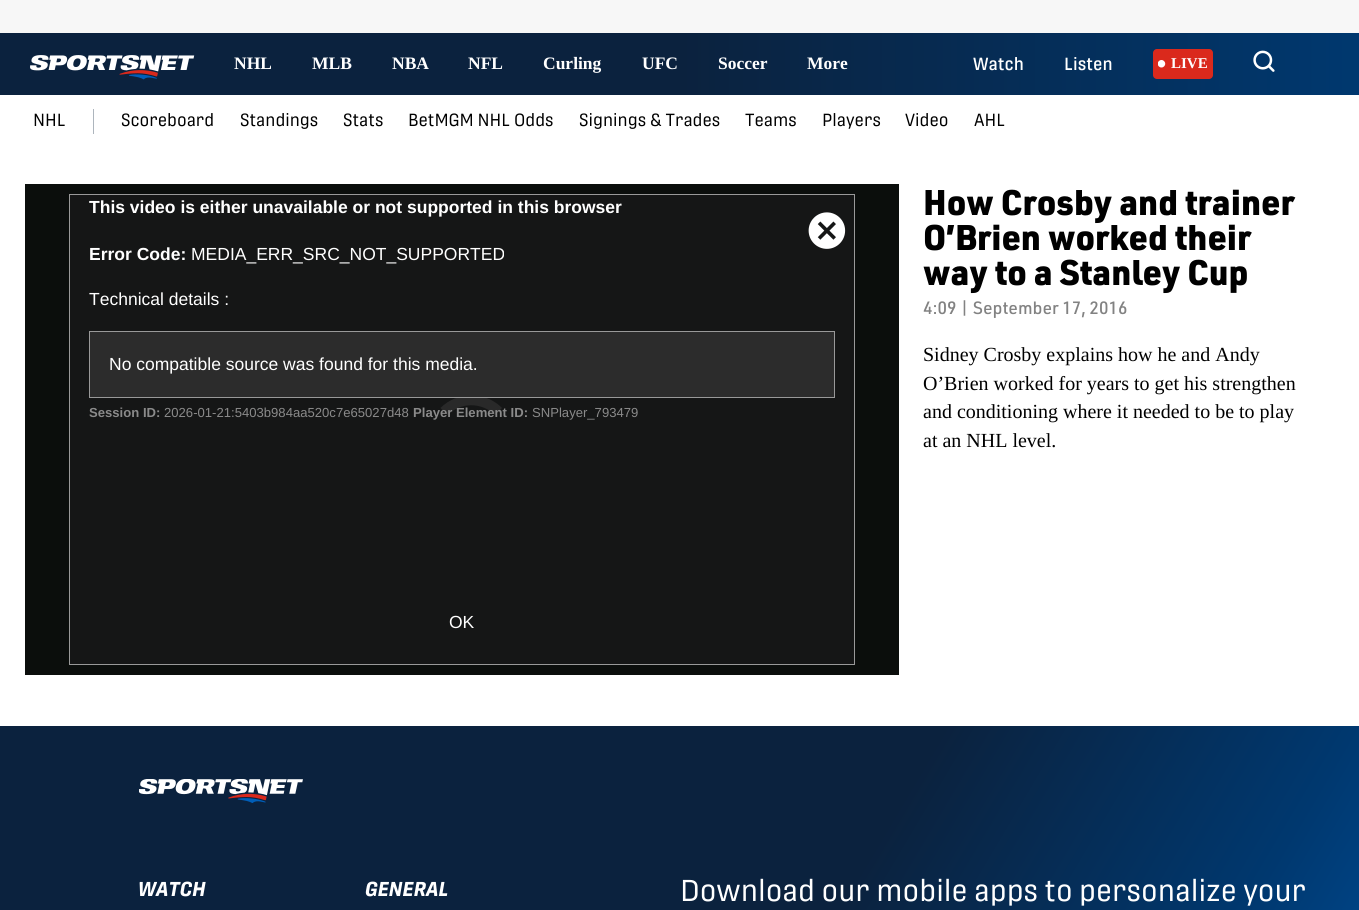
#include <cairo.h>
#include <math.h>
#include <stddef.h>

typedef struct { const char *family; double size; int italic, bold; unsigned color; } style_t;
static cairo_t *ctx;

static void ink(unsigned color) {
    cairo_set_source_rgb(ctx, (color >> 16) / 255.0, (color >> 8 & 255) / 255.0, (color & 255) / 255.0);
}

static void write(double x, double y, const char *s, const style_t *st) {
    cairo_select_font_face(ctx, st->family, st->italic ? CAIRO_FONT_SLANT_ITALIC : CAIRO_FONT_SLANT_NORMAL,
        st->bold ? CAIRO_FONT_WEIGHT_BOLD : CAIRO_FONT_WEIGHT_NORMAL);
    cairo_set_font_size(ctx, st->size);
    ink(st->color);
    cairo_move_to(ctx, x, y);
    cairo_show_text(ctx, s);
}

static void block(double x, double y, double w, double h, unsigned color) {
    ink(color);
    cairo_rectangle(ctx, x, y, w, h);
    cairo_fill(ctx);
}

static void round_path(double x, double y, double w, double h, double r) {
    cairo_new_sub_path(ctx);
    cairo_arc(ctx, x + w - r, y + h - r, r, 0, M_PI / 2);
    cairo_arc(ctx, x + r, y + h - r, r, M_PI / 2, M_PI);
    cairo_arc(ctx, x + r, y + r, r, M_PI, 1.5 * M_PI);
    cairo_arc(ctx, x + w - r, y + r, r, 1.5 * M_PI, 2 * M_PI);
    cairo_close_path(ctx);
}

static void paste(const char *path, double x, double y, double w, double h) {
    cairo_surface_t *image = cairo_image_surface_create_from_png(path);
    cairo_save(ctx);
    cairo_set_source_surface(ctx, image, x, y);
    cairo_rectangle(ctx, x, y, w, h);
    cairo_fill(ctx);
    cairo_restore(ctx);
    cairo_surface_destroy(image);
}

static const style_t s1 = {"Liberation Serif", 17.5, 0, 1, 0xffffff};
static const style_t s2 = {"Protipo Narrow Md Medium", 17.5, 0, 0, 0xffffff};
static const style_t s3 = {"Liberation Serif", 15, 0, 1, 0xffffff};
static const style_t s4 = {"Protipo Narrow", 17.5, 0, 0, 0x000000};
static const style_t s5 = {"Liberation Sans", 17.5, 0, 1, 0xffffff};
static const style_t s6 = {"Liberation Sans", 17.5, 0, 0, 0xffffff};
static const style_t s7 = {"Liberation Sans", 13.1, 0, 1, 0x8a8a8a};
static const style_t s8 = {"Liberation Sans", 13.1, 0, 0, 0x8a8a8a};
static const style_t s9 = {"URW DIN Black", 35, 0, 0, 0x000000};
static const style_t s10 = {"URW DIN Medium", 17.5, 0, 0, 0x828282};
static const style_t s11 = {"Liberation Serif", 20, 0, 0, 0x000000};
static const style_t s12 = {"Protipo Narrow", 20, 1, 1, 0xffffff};
static const style_t s13 = {"Protipo Narrow", 30, 0, 0, 0xffffff};

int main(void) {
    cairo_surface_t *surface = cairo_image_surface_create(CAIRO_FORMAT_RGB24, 1359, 910);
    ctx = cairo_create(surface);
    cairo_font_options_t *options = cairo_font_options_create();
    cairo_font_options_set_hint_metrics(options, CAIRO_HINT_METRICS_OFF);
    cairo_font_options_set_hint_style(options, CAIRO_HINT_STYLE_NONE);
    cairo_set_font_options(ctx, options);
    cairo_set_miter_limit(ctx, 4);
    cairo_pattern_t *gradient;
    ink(0xffffff);
    cairo_paint(ctx);
    block(0, 0, 1359, 33, 0xf7f7f7);
    gradient = cairo_pattern_create_linear(0, 64, 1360, 64);
    cairo_pattern_add_color_stop_rgba(gradient, 0.5, 0.043, 0.133, 0.243, 1);
    cairo_pattern_add_color_stop_rgba(gradient, 1, 0, 0.22, 0.435, 1);
    cairo_set_source(ctx, gradient);
    cairo_pattern_destroy(gradient);
    cairo_rectangle(ctx, 0, 33, 1359, 62);
    cairo_fill(ctx);
    paste("pic1.png", 30, 55, 165, 25);
    write(234, 69, "NHL", &s1);
    write(312, 69, "MLB", &s1);
    write(392, 69, "NBA", &s1);
    write(468, 69, "NFL", &s1);
    write(543, 69, "Curling", &s1);
    write(642, 69, "UFC", &s1);
    write(718, 69, "Soccer", &s1);
    write(807, 69, "More", &s1);
    write(973, 70, "Watch", &s2);
    write(1064, 70, "Listen", &s2);
    ink(0xda291c);
    round_path(1153, 49, 60, 30, 4);
    cairo_fill(ctx);
    paste("pic2.png", 1158, 60, 8, 8);
    write(1171, 68, "LIVE", &s3);
    paste("pic3.png", 1253, 50, 22, 22);
    write(33, 126, "NHL", &s4);
    block(93, 109, 1, 25, 0xadb5bd);
    write(121, 126, "Scoreboard", &s4);
    write(240, 126, "Standings", &s4);
    write(343, 126, "Stats", &s4);
    write(408, 126, "BetMGM NHL Odds", &s4);
    write(579, 126, "Signings & Trades", &s4);
    write(745, 126, "Teams", &s4);
    write(822, 126, "Players", &s4);
    write(905, 126, "Video", &s4);
    write(974, 126, "AHL", &s4);
    block(25, 184, 874, 491, 0x0b0e0c);
    block(70, 195, 784, 469, 0x151616);
    cairo_new_path(ctx);
    cairo_move_to(ctx, 444, 411.5);
    cairo_curve_to(ctx, 459, 396.5, 483.5, 396.5, 498.5, 411.5);
    cairo_move_to(ctx, 444, 411.5);
    cairo_curve_to(ctx, 459, 396.5, 483.5, 396.5, 498.5, 411.5);
    ink(0x292929);
    cairo_set_line_width(ctx, 10);
    cairo_stroke(ctx);
    cairo_rectangle(ctx, 69.5, 194.5, 785, 470);
    ink(0x999999);
    cairo_set_line_width(ctx, 1);
    cairo_stroke(ctx);
    write(89, 213, "This video is either unavailable or not supported in this browser", &s5);
    write(89, 260, "Error Code:", &s5);
    write(191, 260, "MEDIA_ERR_SRC_NOT_SUPPORTED", &s6);
    write(89, 305, "Technical details :", &s6);
    ink(0x2c2c2c);
    cairo_rectangle(ctx, 89.5, 331.5, 745, 66);
    cairo_fill_preserve(ctx);
    ink(0x999999);
    cairo_stroke(ctx);
    write(109, 370, "No compatible source was found for this media.", &s6);
    write(89, 417, "Session ID:", &s7);
    write(164, 417, "2026-01-21:5403b984aa520c7e65027d48", &s8);
    write(413, 417, "Player Element ID:", &s7);
    write(532, 417, "SNPlayer_793479", &s8);
    paste("pic4.png", 808, 212, 38, 37);
    write(449, 628, "OK", &s6);
    write(923, 215, "How Crosby and trainer", &s9);
    write(923, 250, "O’Brien worked their", &s9);
    write(923, 285, "way to a Stanley Cup", &s9);
    write(923, 314, "4:09 | September 17, 2016", &s10);
    write(923, 361, "Sidney Crosby explains how he and Andy", &s11);
    write(923, 390, "O’Brien worked for years to get his strengthen", &s11);
    write(923, 418, "and conditioning where it needed to be to play", &s11);
    write(923, 447, "at an NHL level.", &s11);
    gradient = cairo_pattern_create_linear(20, 693, 1340, 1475);
    cairo_pattern_add_color_stop_rgba(gradient, 0.53, 0.043, 0.133, 0.243, 1);
    cairo_pattern_add_color_stop_rgba(gradient, 0.76, 0, 0.22, 0.435, 1);
    cairo_pattern_add_color_stop_rgba(gradient, 1, 0, 0.369, 0.722, 1);
    cairo_set_source(ctx, gradient);
    cairo_pattern_destroy(gradient);
    cairo_rectangle(ctx, 0, 726, 1359, 184);
    cairo_fill(ctx);
    paste("pic5.png", 139, 779, 164, 24);
    write(138, 896, "WATCH", &s12);
    write(365, 896, "GENERAL", &s12);
    write(680, 901, "Download our mobile apps to personalize your", &s13);
    cairo_surface_write_to_png(surface, "screenshot.png");
    cairo_font_options_destroy(options);
    cairo_destroy(ctx);
    cairo_surface_destroy(surface);
    return 0;
}
